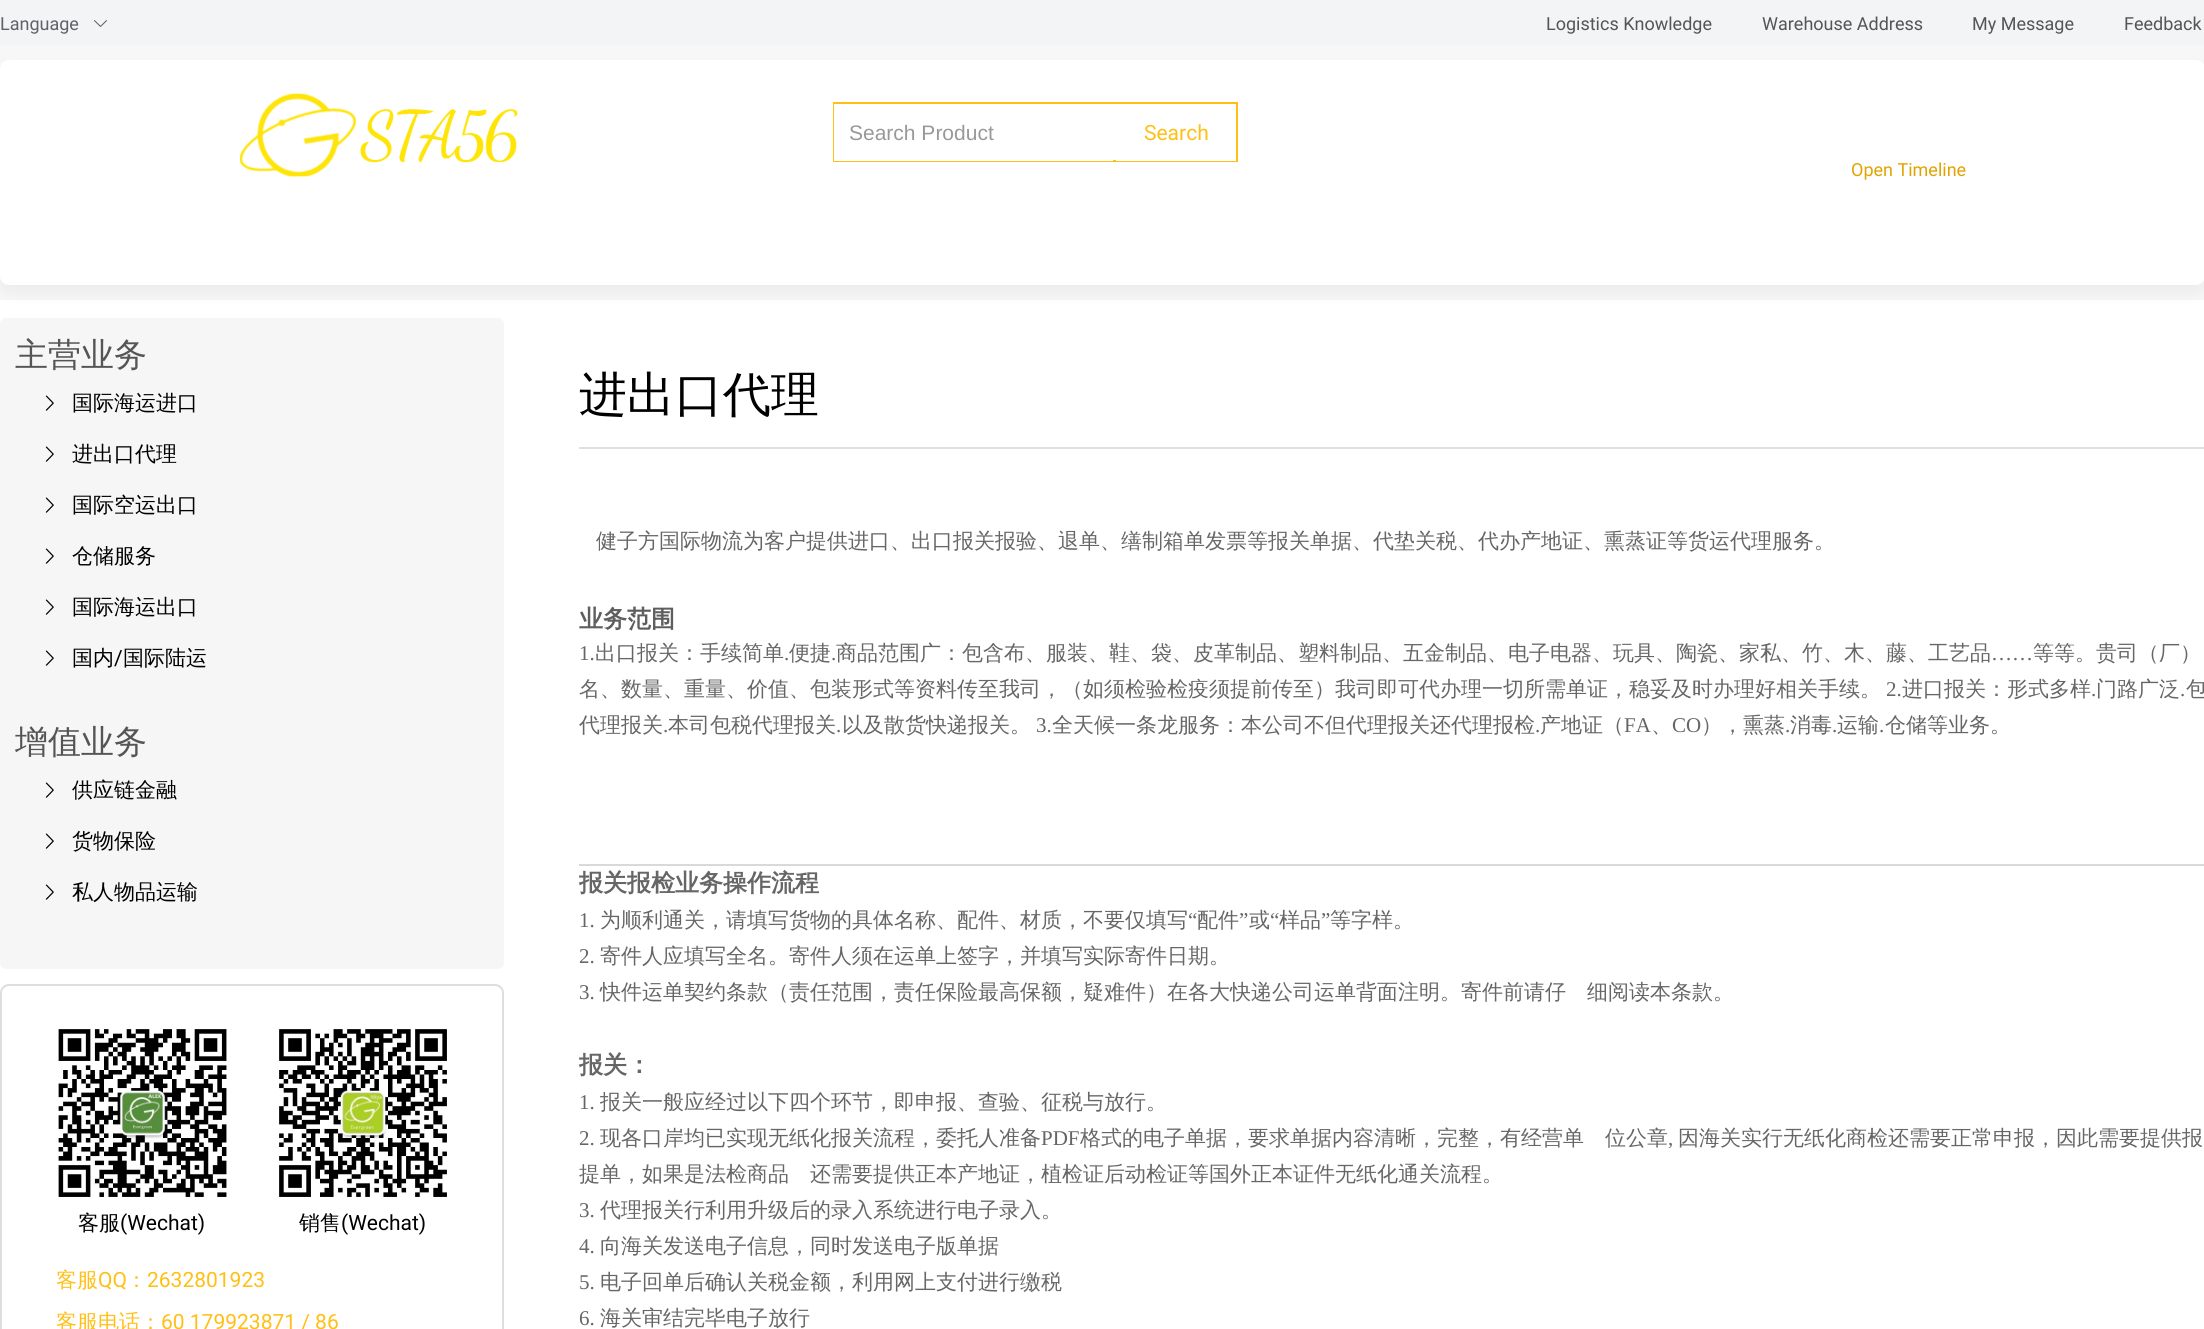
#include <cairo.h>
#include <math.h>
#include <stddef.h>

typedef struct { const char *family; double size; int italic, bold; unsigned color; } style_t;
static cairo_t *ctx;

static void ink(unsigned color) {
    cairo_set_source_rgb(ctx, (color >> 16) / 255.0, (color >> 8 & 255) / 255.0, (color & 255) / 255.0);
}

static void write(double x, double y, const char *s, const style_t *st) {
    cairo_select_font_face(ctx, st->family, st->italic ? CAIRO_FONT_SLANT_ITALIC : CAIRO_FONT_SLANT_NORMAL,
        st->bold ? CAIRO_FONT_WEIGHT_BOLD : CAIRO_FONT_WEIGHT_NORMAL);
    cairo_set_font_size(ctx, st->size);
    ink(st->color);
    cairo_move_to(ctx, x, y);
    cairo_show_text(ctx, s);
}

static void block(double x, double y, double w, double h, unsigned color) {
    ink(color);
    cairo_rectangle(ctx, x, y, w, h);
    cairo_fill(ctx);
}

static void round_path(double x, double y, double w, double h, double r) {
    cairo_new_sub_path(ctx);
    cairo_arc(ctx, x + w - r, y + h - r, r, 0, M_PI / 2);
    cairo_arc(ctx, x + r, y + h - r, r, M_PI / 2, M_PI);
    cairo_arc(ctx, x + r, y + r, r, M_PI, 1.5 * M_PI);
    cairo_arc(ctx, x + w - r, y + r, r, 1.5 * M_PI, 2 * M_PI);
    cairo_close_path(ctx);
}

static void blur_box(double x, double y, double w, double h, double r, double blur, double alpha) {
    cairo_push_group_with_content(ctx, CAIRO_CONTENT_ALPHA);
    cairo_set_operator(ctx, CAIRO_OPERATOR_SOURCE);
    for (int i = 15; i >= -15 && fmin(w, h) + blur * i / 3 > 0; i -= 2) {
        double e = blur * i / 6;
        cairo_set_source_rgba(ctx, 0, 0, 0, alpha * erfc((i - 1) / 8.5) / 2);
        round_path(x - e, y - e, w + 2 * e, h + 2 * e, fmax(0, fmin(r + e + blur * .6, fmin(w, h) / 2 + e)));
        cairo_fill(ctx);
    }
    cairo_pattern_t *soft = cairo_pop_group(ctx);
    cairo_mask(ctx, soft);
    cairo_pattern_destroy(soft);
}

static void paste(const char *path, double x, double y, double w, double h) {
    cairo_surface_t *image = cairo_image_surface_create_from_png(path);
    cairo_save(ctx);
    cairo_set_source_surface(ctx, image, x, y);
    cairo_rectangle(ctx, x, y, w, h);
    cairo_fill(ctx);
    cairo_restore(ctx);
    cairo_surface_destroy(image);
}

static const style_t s1 = {"Roboto", 18, 0, 0, 0x606266};
static const style_t s2 = {"Roboto", 18, 0, 0, 0x555555};
static const style_t s3 = {"Liberation Sans", 21, 0, 0, 0x999999};
static const style_t s4 = {"Roboto", 21, 0, 0, 0xffbf15};
static const style_t s5 = {"Roboto", 18, 0, 0, 0xe1a300};
static const style_t s6 = {"WenQuanYi Zen Hei Medium", 33, 0, 0, 0x555555};
static const style_t s7 = {"WenQuanYi Zen Hei Medium", 21, 0, 0, 0x000000};
static const style_t s8 = {"Roboto", 21, 0, 0, 0x000000};
static const style_t s9 = {"WenQuanYi Zen Hei Medium", 21, 0, 0, 0xffbf15};
static const style_t s10 = {"WenQuanYi Zen Hei Medium", 48, 0, 0, 0x000000};
static const style_t s11 = {"WenQuanYi Zen Hei Medium", 21, 0, 0, 0x666666};
static const style_t s12 = {"WenQuanYi Zen Hei", 24, 0, 1, 0x5e5e5e};
static const style_t s13 = {"Liberation Serif", 21, 0, 0, 0x666666};
static const style_t s14 = {"WenQuanYi Zen Hei", 24, 0, 1, 0x666666};

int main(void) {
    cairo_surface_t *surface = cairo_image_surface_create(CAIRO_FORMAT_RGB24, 2204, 1329);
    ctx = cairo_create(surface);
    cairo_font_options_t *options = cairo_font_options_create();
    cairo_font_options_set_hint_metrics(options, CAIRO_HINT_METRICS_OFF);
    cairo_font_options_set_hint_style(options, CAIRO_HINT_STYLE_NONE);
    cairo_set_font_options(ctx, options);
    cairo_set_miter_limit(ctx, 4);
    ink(0xf7f7f7);
    cairo_paint(ctx);
    block(0, 0, 2204, 45, 0xf2f4f5);
    write(0, 30, "Language", &s1);
    paste("pic1.png", 94, 20, 13, 7);
    write(1546, 30, "Logistics Knowledge", &s2);
    write(1762, 30, "Warehouse Address", &s2);
    write(1972, 30, "My Message", &s2);
    write(2124, 30, "Feedback", &s2);
    block(0, 300, 2204, 1029, 0xffffff);
    ink(0xececec);
    blur_box(0, 68, 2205, 225, 9, 6, 1);
    ink(0xffffff);
    round_path(0, 60, 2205, 225, 9);
    cairo_fill(ctx);
    paste("pic2.png", 240, 93, 278, 84);
    cairo_rectangle(ctx, 834, 103, 403, 58);
    ink(0xffbf15);
    cairo_stroke(ctx);
    block(834, 104, 279, 57, 0xffffff);
    write(849, 140, "Search Product", &s3);
    block(1116, 160, 120, 1, 0xffffff);
    write(1144, 140, "Search", &s4);
    write(1851, 176, "Open Timeline", &s5);
    ink(0xf6f6f6);
    round_path(0, 318, 504, 651, 6);
    cairo_fill(ctx);
    write(15, 366, "主营业务", &s6);
    paste("pic3.png", 45, 395, 9, 16);
    write(72, 410, "国际海运进口", &s7);
    paste("pic3.png", 45, 446, 9, 16);
    write(72, 461, "进出口代理", &s7);
    paste("pic3.png", 45, 497, 9, 16);
    write(72, 512, "国际空运出口", &s7);
    paste("pic3.png", 45, 548, 9, 16);
    write(72, 563, "仓储服务", &s7);
    paste("pic3.png", 45, 599, 9, 16);
    write(72, 614, "国际海运出口", &s7);
    paste("pic3.png", 45, 650, 9, 16);
    write(72, 665, "国内", &s7);
    write(114, 665, "/", &s8);
    write(123, 665, "国际陆运", &s7);
    write(15, 753, "增值业务", &s6);
    paste("pic3.png", 45, 782, 9, 16);
    write(72, 797, "供应链金融", &s7);
    paste("pic3.png", 45, 833, 9, 16);
    write(72, 848, "货物保险", &s7);
    paste("pic3.png", 45, 884, 9, 16);
    write(72, 899, "私人物品运输", &s7);
    round_path(1, 985, 502, 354, 8);
    ink(0xdedede);
    cairo_stroke(ctx);
    paste("pic4.png", 58, 1029, 169, 168);
    write(78, 1230, "客服", &s7);
    write(120, 1230, "(Wechat)", &s8);
    paste("pic5.png", 279, 1029, 168, 168);
    write(299, 1230, "销售", &s7);
    write(341, 1230, "(Wechat)", &s8);
    write(56, 1287, "客服", &s9);
    write(98, 1287, "QQ", &s4);
    write(126, 1287, "：", &s9);
    write(147, 1287, "2632801923", &s4);
    write(56, 1329, "客服电话：", &s9);
    write(161, 1329, "60 179923871 / 86", &s4);
    block(579, 447, 1625, 2, 0xe0e0e0);
    write(579, 411, "进出口代理", &s10);
    write(596, 548, "健子方国际物流为客户提供进口、出口报关报验、退单、缮制箱单发票等报关单据、代垫关税、代办产地证、熏蒸证等货运代理服务。", &s11);
    write(579, 627, "业务范围", &s12);
    write(579, 660, "1.", &s13);
    write(595, 660, "出口报关：手续简单", &s11);
    write(784, 660, ".", &s13);
    write(789, 660, "便捷", &s11);
    write(831, 660, ".", &s13);
    write(836, 660, "商品范围广：包含布、服装、鞋、袋、皮革制品、塑料制品、五金制品、电子电器、玩具、陶瓷、家私、竹、木、藤、工艺品", &s11);
    write(1991, 660, "……", &s13);
    write(2033, 660, "等等。贵司（厂）", &s11);
    write(579, 696, "名、数量、重量、价值、包装形式等资料传至我司，（如须检验检疫须提前传至）我司即可代办理一切所需单证，稳妥及时办理好相关手续。", &s11);
    write(1886, 696, "2.", &s13);
    write(1902, 696, "进口报关：形式多样", &s11);
    write(2091, 696, ".", &s13);
    write(2096, 696, "门路广泛", &s11);
    write(2180, 696, ".", &s13);
    write(2186, 696, "包", &s11);
    write(579, 732, "代理报关", &s11);
    write(663, 732, ".", &s13);
    write(668, 732, "本司包税代理报关", &s11);
    write(836, 732, ".", &s13);
    write(842, 732, "以及散货快递报关。", &s11);
    write(1036, 732, "3.", &s13);
    write(1052, 732, "全天候一条龙服务：本公司不但代理报关还代理报检", &s11);
    write(1535, 732, ".", &s13);
    write(1540, 732, "产地证（", &s11);
    write(1624, 732, "FA", &s13);
    write(1651, 732, "、", &s11);
    write(1672, 732, "CO", &s13);
    write(1701, 732, "），熏蒸", &s11);
    write(1785, 732, ".", &s13);
    write(1790, 732, "消毒", &s11);
    write(1832, 732, ".", &s13);
    write(1837, 732, "运输", &s11);
    write(1879, 732, ".", &s13);
    write(1885, 732, "仓储等业务。", &s11);
    block(579, 864, 1625, 2, 0xd9d9d9);
    write(579, 891, "报关报检业务操作流程", &s14);
    write(579, 927, "1.", &s13);
    write(600, 927, "为顺利通关，请填写货物的具体名称、配件、材质，不要仅填写", &s11);
    write(1188, 927, "“", &s13);
    write(1197, 927, "配件", &s11);
    write(1239, 927, "”", &s13);
    write(1249, 927, "或", &s11);
    write(1270, 927, "“", &s13);
    write(1279, 927, "样品", &s11);
    write(1321, 927, "”", &s13);
    write(1330, 927, "等字样。", &s11);
    write(579, 963, "2.", &s13);
    write(600, 963, "寄件人应填写全名。寄件人须在运单上签字，并填写实际寄件日期。", &s11);
    write(579, 999, "3.", &s13);
    write(600, 999, "快件运单契约条款（责任范围，责任保险最高保额，疑难件）在各大快递公司运单背面注明。寄件前请仔", &s11);
    write(1587, 999, "细阅读本条款。", &s11);
    write(579, 1073, "报关：", &s14);
    write(579, 1109, "1.", &s13);
    write(600, 1109, "报关一般应经过以下四个环节，即申报、查验、征税与放行。", &s11);
    write(579, 1145, "2.", &s13);
    write(600, 1145, "现各口岸均已实现无纸化报关流程，委托人准备", &s11);
    write(1041, 1145, "PDF", &s13);
    write(1080, 1145, "格式的电子单据，要求单据内容清晰，完整，有经营单", &s11);
    write(1605, 1145, "位公章", &s11);
    write(1668, 1145, ",", &s13);
    write(1678, 1145, "因海关实行无纸化商检还需要正常申报，因此需要提供报", &s11);
    write(579, 1181, "提单，如果是法检商品", &s11);
    write(810, 1181, "还需要提供正本产地证，植检证后动检证等国外正本证件无纸化通关流程。", &s11);
    write(579, 1217, "3.", &s13);
    write(600, 1217, "代理报关行利用升级后的录入系统进行电子录入。", &s11);
    write(579, 1253, "4.", &s13);
    write(600, 1253, "向海关发送电子信息，同时发送电子版单据", &s11);
    write(579, 1289, "5.", &s13);
    write(600, 1289, "电子回单后确认关税金额，利用网上支付进行缴税", &s11);
    write(579, 1325, "6.", &s13);
    write(600, 1325, "海关审结完毕电子放行", &s11);
    cairo_surface_write_to_png(surface, "screenshot.png");
    cairo_font_options_destroy(options);
    cairo_destroy(ctx);
    cairo_surface_destroy(surface);
    return 0;
}
